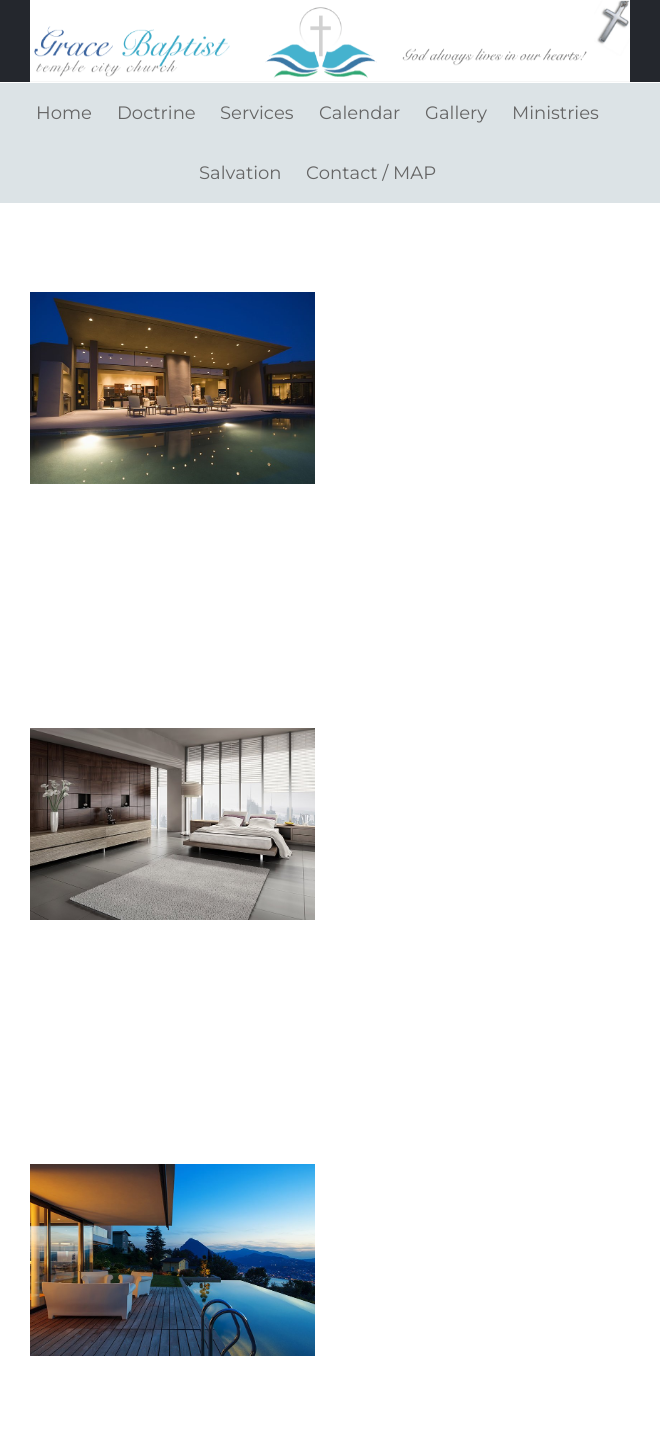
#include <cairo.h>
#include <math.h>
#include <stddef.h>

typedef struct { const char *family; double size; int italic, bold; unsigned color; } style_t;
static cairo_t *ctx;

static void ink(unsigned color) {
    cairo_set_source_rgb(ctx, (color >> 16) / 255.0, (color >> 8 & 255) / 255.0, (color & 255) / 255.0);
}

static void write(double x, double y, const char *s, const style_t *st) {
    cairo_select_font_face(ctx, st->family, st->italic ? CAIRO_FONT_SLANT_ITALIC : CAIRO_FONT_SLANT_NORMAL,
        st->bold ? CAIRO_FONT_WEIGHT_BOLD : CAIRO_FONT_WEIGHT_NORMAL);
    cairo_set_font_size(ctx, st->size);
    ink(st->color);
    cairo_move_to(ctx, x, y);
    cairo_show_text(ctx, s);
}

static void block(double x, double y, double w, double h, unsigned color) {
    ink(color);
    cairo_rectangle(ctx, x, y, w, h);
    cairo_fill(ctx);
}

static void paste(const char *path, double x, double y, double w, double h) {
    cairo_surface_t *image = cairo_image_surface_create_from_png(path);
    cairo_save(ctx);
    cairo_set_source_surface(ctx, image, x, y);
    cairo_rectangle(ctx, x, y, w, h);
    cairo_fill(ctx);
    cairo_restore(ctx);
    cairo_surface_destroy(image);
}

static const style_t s1 = {"Montserrat Thin", 18, 0, 0, 0x666666};

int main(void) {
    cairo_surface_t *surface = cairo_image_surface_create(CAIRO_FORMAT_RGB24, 660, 1455);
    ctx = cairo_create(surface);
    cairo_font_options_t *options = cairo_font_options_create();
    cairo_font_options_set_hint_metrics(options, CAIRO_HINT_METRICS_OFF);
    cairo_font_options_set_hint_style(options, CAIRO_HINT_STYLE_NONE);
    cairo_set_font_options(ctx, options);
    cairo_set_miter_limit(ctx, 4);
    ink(0xffffff);
    cairo_paint(ctx);
    block(0, 0, 660, 82, 0x24272d);
    paste("pic1.png", 30, 0, 600, 82);
    block(0, 83, 660, 120, 0xdce3e6);
    write(36, 119, "Home", &s1);
    write(117, 119, "Doctrine", &s1);
    write(220, 119, "Services", &s1);
    write(319, 119, "Calendar", &s1);
    write(425, 119, "Gallery", &s1);
    write(512, 119, "Ministries", &s1);
    write(199, 179, "Salvation", &s1);
    write(306, 179, "Contact / MAP", &s1);
    paste("pic2.png", 30, 292, 285, 192);
    paste("pic3.png", 30, 728, 285, 192);
    paste("pic4.png", 30, 1164, 285, 192);
    cairo_surface_write_to_png(surface, "screenshot.png");
    cairo_font_options_destroy(options);
    cairo_destroy(ctx);
    cairo_surface_destroy(surface);
    return 0;
}
